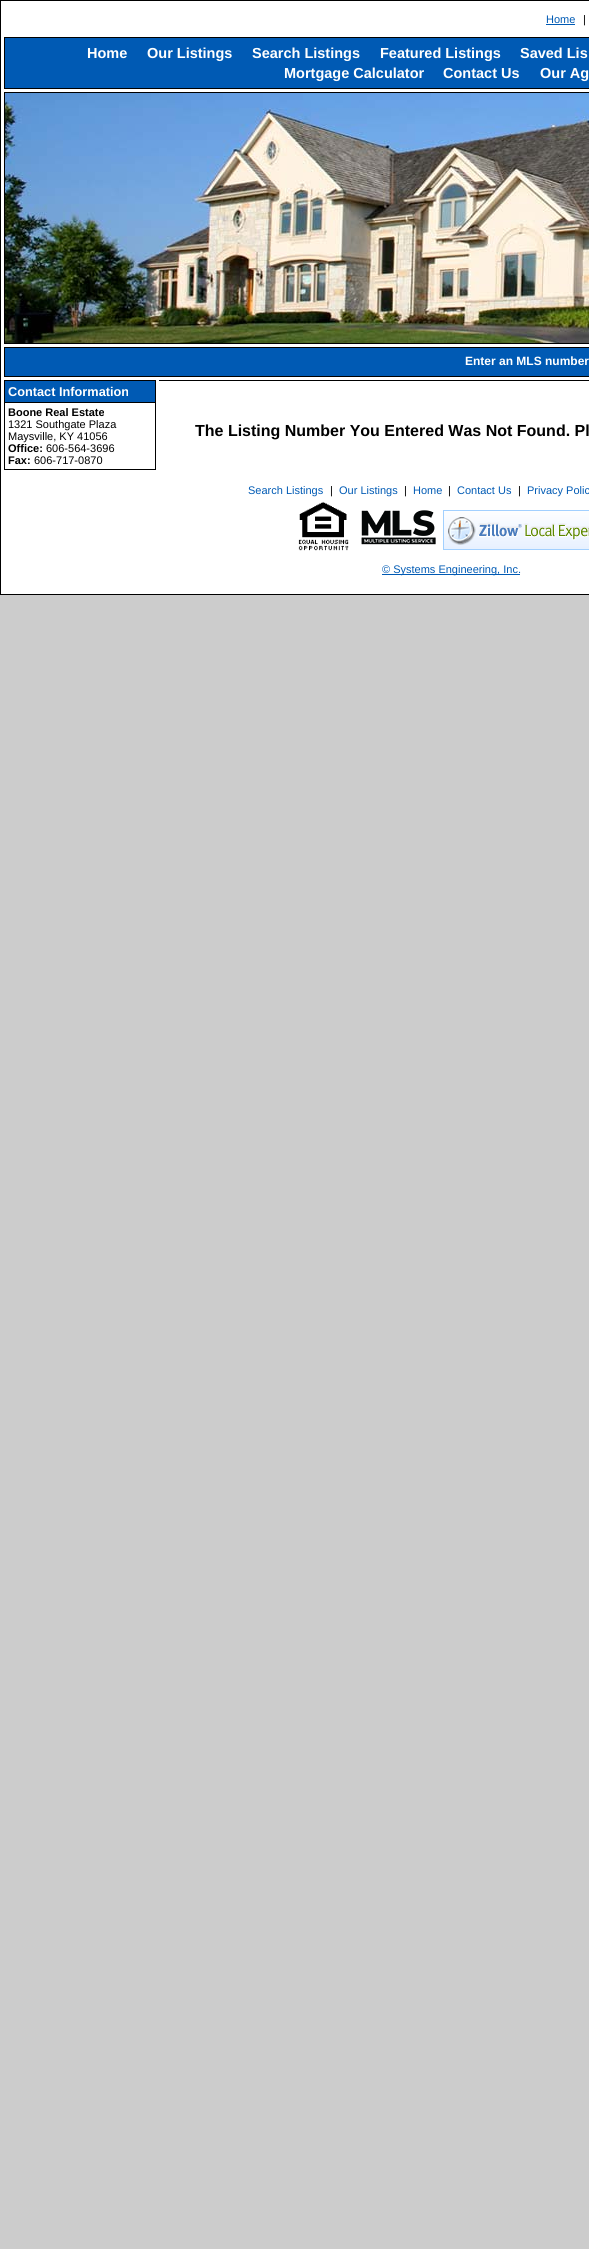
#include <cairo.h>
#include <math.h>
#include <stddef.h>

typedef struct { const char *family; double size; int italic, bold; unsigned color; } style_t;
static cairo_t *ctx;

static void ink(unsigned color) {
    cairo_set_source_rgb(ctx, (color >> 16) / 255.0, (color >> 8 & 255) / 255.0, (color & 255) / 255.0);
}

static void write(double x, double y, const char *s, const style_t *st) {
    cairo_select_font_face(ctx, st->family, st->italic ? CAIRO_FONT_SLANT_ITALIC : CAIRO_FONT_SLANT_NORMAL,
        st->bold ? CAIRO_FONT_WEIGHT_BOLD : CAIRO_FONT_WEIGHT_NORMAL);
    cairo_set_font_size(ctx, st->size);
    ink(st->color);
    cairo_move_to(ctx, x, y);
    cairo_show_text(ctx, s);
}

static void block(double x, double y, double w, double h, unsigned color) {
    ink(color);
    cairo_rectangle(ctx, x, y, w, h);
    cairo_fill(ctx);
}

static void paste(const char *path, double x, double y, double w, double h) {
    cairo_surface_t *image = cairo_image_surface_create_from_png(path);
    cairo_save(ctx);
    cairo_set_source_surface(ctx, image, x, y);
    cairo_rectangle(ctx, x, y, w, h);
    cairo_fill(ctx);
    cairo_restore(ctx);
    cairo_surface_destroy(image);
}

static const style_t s1 = {"Liberation Sans", 11, 0, 0, 0x005ab4};
static const style_t s2 = {"Liberation Sans", 11, 0, 0, 0x000000};
static const style_t s3 = {"Liberation Sans", 14.5, 0, 1, 0xffffff};
static const style_t s4 = {"Liberation Sans", 12, 0, 1, 0xffffff};
static const style_t s5 = {"Liberation Sans", 12.75, 0, 1, 0xffffff};
static const style_t s6 = {"Liberation Sans", 11, 0, 1, 0x000000};
static const style_t s7 = {"Liberation Sans", 16, 0, 1, 0x000000};

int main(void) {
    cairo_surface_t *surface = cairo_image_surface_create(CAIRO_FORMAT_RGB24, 589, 2249);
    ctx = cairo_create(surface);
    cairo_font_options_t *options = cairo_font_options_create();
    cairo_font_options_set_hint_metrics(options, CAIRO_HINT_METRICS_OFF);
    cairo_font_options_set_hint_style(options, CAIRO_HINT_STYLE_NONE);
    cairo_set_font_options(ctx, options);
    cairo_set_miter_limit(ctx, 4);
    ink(0xcccccc);
    cairo_paint(ctx);
    ink(0xffffff);
    cairo_rectangle(ctx, 0.5, 0.5, 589, 594);
    cairo_fill_preserve(ctx);
    ink(0x000000);
    cairo_set_line_width(ctx, 1);
    cairo_stroke(ctx);
    write(546, 23, "Home", &s1);
    block(546, 24, 29, 1, 0x005ab4);
    write(583, 23, "|", &s2);
    ink(0x005ab4);
    cairo_rectangle(ctx, 4.5, 37.5, 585, 51);
    cairo_fill_preserve(ctx);
    ink(0x000000);
    cairo_stroke(ctx);
    write(87, 58, "Home", &s3);
    write(147, 58, "Our Listings", &s3);
    write(252, 58, "Search Listings", &s3);
    write(380, 58, "Featured Listings", &s3);
    write(520, 58, "Saved Lis", &s3);
    write(284, 78, "Mortgage Calculator", &s3);
    write(443, 78, "Contact Us", &s3);
    write(540, 78, "Our Ag", &s3);
    paste("pic1.png", 5, 93, 584, 250);
    cairo_rectangle(ctx, 4.5, 92.5, 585, 251);
    ink(0x000000);
    cairo_stroke(ctx);
    ink(0x005ab4);
    cairo_rectangle(ctx, 4.5, 347.5, 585, 29);
    cairo_fill_preserve(ctx);
    ink(0x000000);
    cairo_stroke(ctx);
    write(465, 365, "Enter an MLS number", &s4);
    ink(0x005ab4);
    cairo_rectangle(ctx, 4.5, 380.5, 151, 22);
    cairo_fill_preserve(ctx);
    ink(0x000000);
    cairo_stroke(ctx);
    write(8, 396, "Contact Information", &s5);
    block(155, 403, 1, 67, 0x000000);
    block(4, 469, 152, 1, 0x000000);
    block(4, 403, 1, 67, 0x000000);
    write(8, 416, "Boone Real Estate", &s6);
    write(8, 428, "1321 Southgate Plaza", &s2);
    write(8, 440, "Maysville, KY 41056", &s2);
    write(8, 452, "Office:", &s6);
    write(46, 452, "606-564-3696", &s2);
    write(8, 464, "Fax:", &s6);
    write(34, 464, "606-717-0870", &s2);
    block(159, 380, 430, 1, 0x000000);
    write(195, 436, "The Listing Number You Entered Was Not Found. Pl", &s7);
    write(248, 494, "Search Listings", &s1);
    write(330, 494, "|", &s2);
    write(339, 494, "Our Listings", &s1);
    write(404, 494, "|", &s2);
    write(413, 494, "Home", &s1);
    write(448, 494, "|", &s2);
    write(457, 494, "Contact Us", &s1);
    write(518, 494, "|", &s2);
    write(527, 494, "Privacy Polic", &s1);
    paste("pic2.png", 298, 501, 51, 50);
    paste("pic3.png", 361, 510, 75, 35);
    paste("pic4.png", 443, 510, 146, 40);
    block(382, 574, 138, 1, 0x005ab4);
    write(382, 573, "© Systems Engineering, Inc.", &s1);
    cairo_surface_write_to_png(surface, "screenshot.png");
    cairo_font_options_destroy(options);
    cairo_destroy(ctx);
    cairo_surface_destroy(surface);
    return 0;
}
